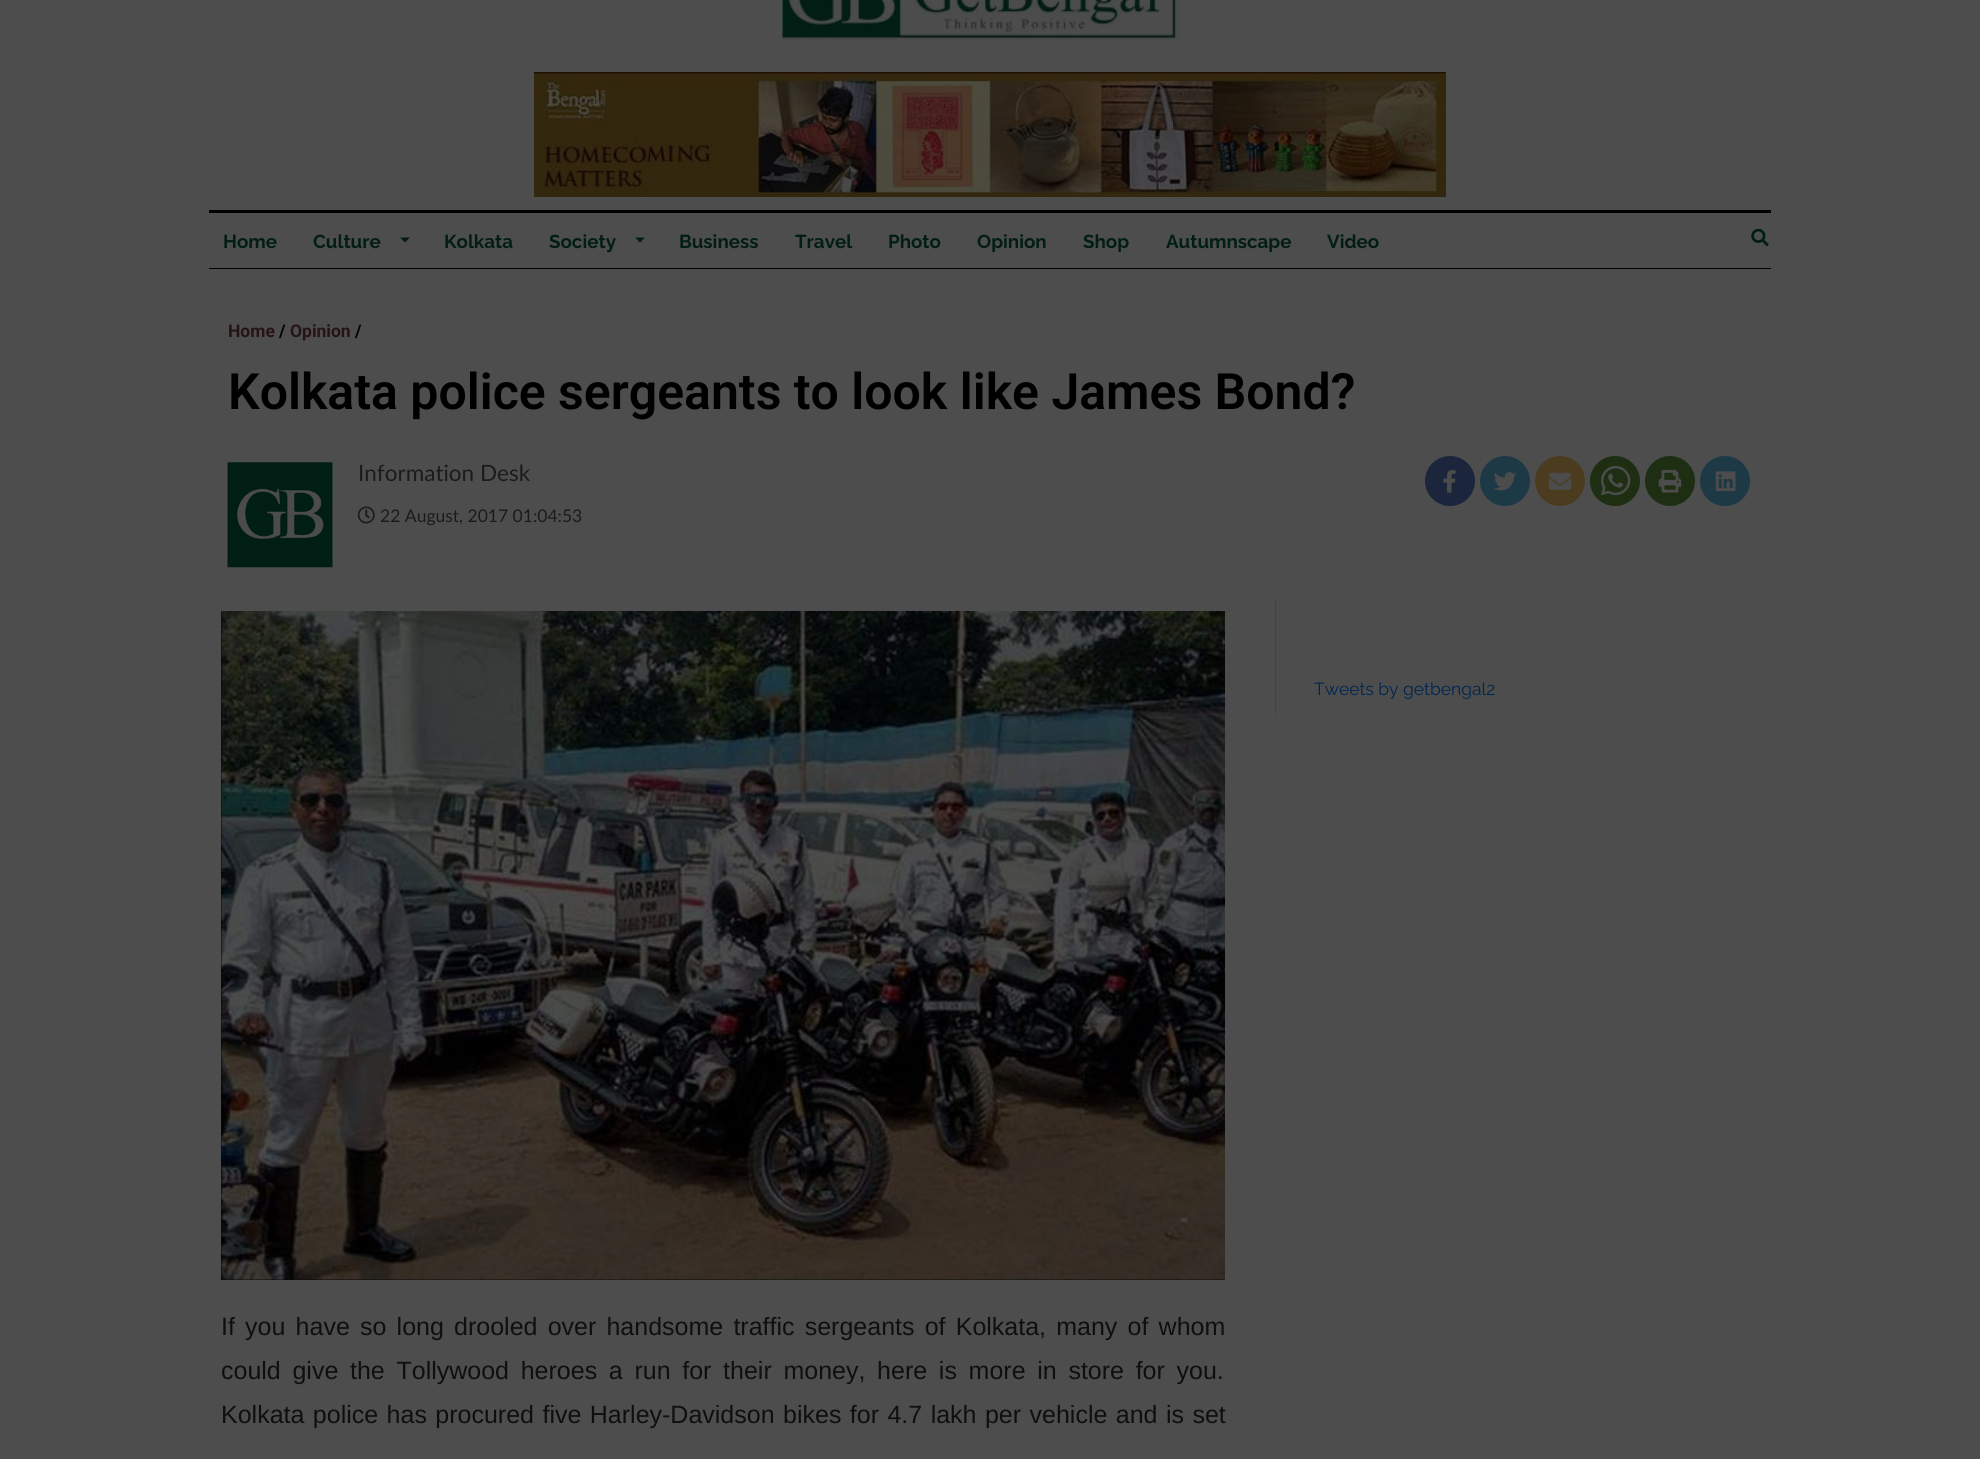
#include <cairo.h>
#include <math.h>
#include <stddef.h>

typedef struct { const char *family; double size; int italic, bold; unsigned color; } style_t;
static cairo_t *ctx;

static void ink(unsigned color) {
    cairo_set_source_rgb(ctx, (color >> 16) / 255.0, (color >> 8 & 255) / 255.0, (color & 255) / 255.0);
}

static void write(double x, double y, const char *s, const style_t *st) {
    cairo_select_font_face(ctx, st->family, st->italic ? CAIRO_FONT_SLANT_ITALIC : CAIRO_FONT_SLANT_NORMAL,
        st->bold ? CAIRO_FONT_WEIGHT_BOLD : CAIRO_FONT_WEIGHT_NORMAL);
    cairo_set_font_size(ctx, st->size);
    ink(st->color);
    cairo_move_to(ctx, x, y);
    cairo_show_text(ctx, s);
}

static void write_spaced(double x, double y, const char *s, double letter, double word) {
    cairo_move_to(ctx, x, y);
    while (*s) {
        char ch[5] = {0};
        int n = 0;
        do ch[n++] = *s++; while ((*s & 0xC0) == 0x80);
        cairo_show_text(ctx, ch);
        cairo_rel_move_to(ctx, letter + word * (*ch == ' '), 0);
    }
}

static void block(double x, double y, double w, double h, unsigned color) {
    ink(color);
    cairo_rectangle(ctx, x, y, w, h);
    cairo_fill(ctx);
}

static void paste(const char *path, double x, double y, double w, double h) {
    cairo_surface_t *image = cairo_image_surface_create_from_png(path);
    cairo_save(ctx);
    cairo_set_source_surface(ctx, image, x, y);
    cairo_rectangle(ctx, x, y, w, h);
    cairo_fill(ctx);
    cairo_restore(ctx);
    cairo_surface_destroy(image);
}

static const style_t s1 = {"Raleway", 18.75, 0, 1, 0x021e14};
static const style_t s2 = {"Roboto", 17.5, 0, 1, 0x261315};
static const style_t s3 = {"Roboto", 17.5, 0, 1, 0x000000};
static const style_t s4 = {"Roboto SemiBold", 50, 0, 0, 0x000000};
static const style_t s5 = {"Lato", 22.5, 0, 0, 0x1b1b1b};
static const style_t s6 = {"Lato", 17.5, 0, 0, 0x1b1b1b};
static const style_t s7 = {"Raleway", 17.5, 0, 0, 0x00254d};

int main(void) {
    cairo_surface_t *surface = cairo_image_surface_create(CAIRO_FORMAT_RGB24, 1980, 1459);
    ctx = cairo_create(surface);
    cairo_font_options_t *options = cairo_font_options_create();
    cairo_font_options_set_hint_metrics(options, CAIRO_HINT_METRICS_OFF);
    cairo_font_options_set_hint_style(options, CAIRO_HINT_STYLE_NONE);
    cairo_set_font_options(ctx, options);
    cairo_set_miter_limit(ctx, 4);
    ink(0x4d4d4d);
    cairo_paint(ctx);
    paste("pic1.png", 782, 0, 400, 40);
    paste("pic2.png", 534, 72, 912, 125);
    block(209, 210, 1562, 3, 0x000000);
    block(209, 268, 1562, 1, 0x000000);
    write(223, 248, "Home", &s1);
    write(313, 248, "Culture", &s1);
    cairo_new_path(ctx);
    cairo_move_to(ctx, 400, 237.5);
    cairo_line_to(ctx, 410, 237.5);
    cairo_line_to(ctx, 405, 242.5);
    cairo_close_path(ctx);
    cairo_fill(ctx);
    write(444, 248, "Kolkata", &s1);
    write(549, 248, "Society", &s1);
    cairo_new_path(ctx);
    cairo_move_to(ctx, 635, 237.5);
    cairo_line_to(ctx, 645, 237.5);
    cairo_line_to(ctx, 640, 242.5);
    cairo_close_path(ctx);
    cairo_fill(ctx);
    write(679, 248, "Business", &s1);
    write(795, 248, "Travel", &s1);
    write(888, 248, "Photo", &s1);
    write(977, 248, "Opinion", &s1);
    write(1083, 248, "Shop", &s1);
    write(1166, 248, "Autumnscape", &s1);
    write(1327, 248, "Video", &s1);
    paste("pic3.png", 1751, 228, 18, 19);
    write(228, 337, "Home", &s2);
    write(279, 337, "/", &s3);
    write(290, 337, "Opinion", &s2);
    write(355, 337, "/", &s3);
    write(228, 409, "Kolkata police sergeants to look like James Bond?", &s4);
    paste("pic4.png", 227, 462, 106, 106);
    write(358, 481, "Information Desk", &s5);
    paste("pic5.png", 357, 506, 18, 18);
    write(380, 522, "22 August, 2017 01:04:53", &s6);
    ink(0x1b253b);
    cairo_new_path(ctx);
    cairo_arc(ctx, 1450, 481, 25, 0, 2 * M_PI);
    cairo_fill(ctx);
    paste("pic6.png", 1443, 470, 13, 23);
    ink(0x1d3946);
    cairo_arc(ctx, 1505, 481, 25, 0, 2 * M_PI);
    cairo_fill(ctx);
    paste("pic7.png", 1494, 472, 23, 19);
    ink(0x4b3c1f);
    cairo_arc(ctx, 1560, 481, 25, 0, 2 * M_PI);
    cairo_fill(ctx);
    paste("pic8.png", 1548, 472, 24, 18);
    ink(0x1d2e12);
    cairo_arc(ctx, 1615, 481, 25, 0, 2 * M_PI);
    cairo_fill(ctx);
    paste("pic9.png", 1600, 465, 31, 31);
    cairo_arc(ctx, 1670, 481, 25, 0, 2 * M_PI);
    cairo_fill(ctx);
    paste("pic10.png", 1658, 470, 24, 23);
    ink(0x1d3946);
    cairo_arc(ctx, 1725, 481, 25, 0, 2 * M_PI);
    cairo_fill(ctx);
    paste("pic11.png", 1715, 471, 21, 21);
    block(1275, 599, 1, 116, 0x444444);
    write(1314, 695, "Tweets by getbengal2", &s7);
    block(221, 611, 1004, 669, 0x050505);
    paste("pic12.png", 221, 611, 1004, 669);
    cairo_select_font_face(ctx, "Liberation Sans", CAIRO_FONT_SLANT_NORMAL, CAIRO_FONT_WEIGHT_NORMAL);
    cairo_set_font_size(ctx, 25);
    ink(0x0f0f0f);
    write_spaced(221, 1335, "If you have so long drooled over handsome traffic sergeants of Kolkata, many of whom", 0, 3.25);
    write_spaced(221, 1379, "could give the Tollywood heroes a run for their money, here is more in store for you.", 0, 4.75);
    write_spaced(221, 1423, "Kolkata police has procured five Harley-Davidson bikes for 4.7 lakh per vehicle and is set", 0, 1.5);
    cairo_surface_write_to_png(surface, "screenshot.png");
    cairo_font_options_destroy(options);
    cairo_destroy(ctx);
    cairo_surface_destroy(surface);
    return 0;
}
